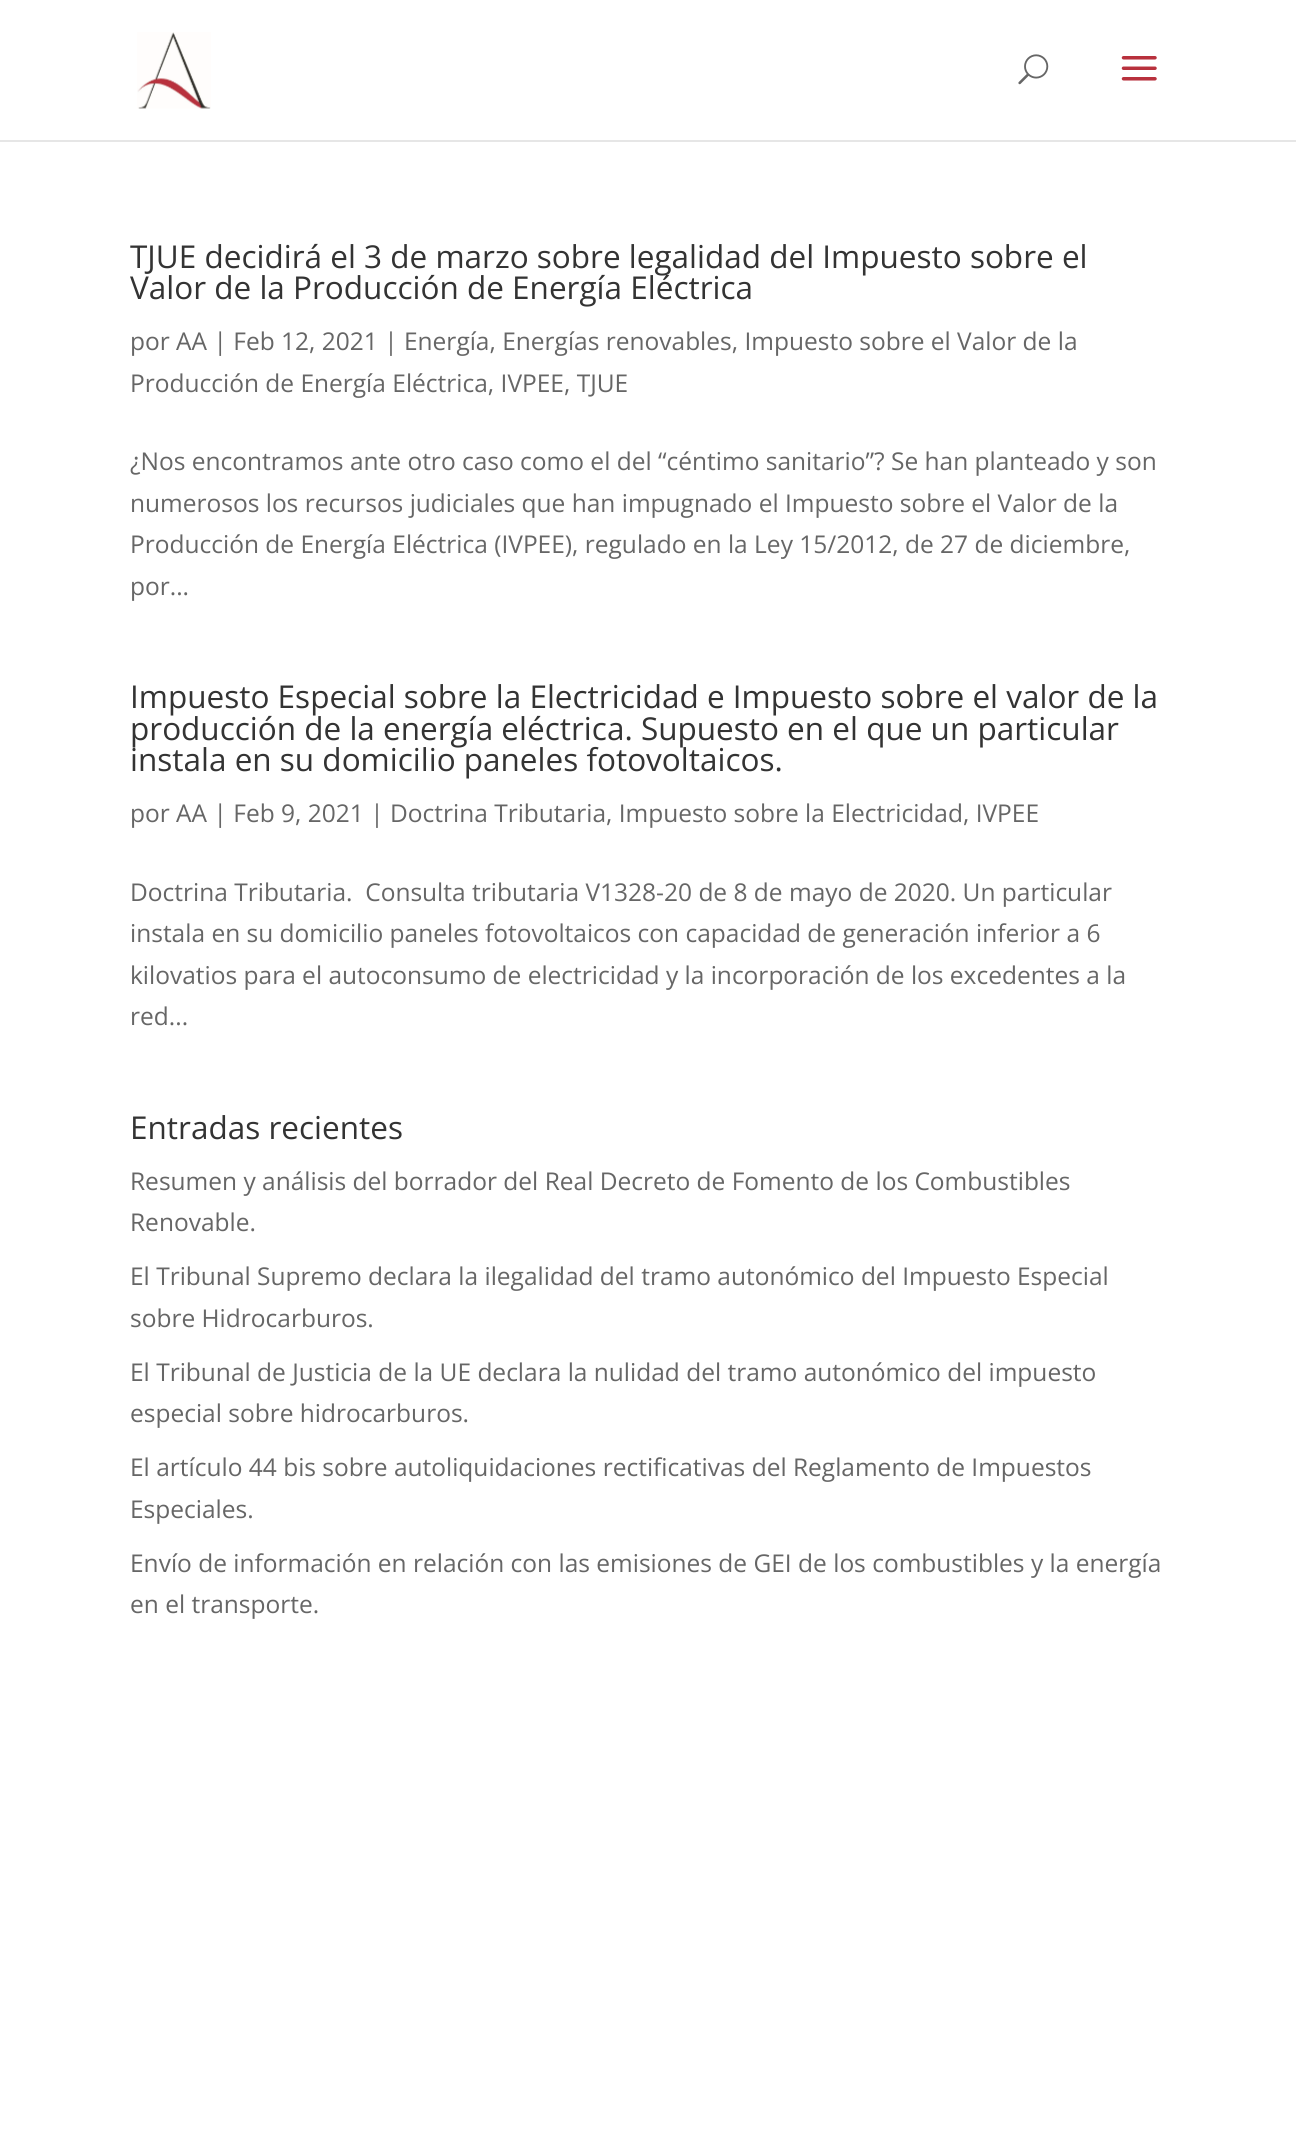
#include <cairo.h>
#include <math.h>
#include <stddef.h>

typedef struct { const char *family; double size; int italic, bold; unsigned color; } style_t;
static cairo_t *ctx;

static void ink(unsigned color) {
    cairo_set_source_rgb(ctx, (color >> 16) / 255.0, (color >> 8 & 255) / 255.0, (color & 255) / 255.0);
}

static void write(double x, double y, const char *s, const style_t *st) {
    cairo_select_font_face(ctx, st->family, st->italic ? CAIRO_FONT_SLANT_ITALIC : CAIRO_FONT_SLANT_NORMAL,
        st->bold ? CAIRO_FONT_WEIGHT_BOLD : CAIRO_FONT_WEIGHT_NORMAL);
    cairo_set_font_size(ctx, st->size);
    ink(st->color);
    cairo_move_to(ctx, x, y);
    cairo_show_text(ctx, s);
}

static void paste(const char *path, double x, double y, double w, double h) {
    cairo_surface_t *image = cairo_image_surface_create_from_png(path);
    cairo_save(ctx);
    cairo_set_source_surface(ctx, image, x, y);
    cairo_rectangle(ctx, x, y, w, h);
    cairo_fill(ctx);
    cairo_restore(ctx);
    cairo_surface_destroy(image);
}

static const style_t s1 = {"Open Sans", 31.5, 0, 0, 0x333333};
static const style_t s2 = {"Open Sans", 24.5, 0, 0, 0x666666};

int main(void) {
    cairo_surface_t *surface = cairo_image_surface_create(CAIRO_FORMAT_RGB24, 1296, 2129);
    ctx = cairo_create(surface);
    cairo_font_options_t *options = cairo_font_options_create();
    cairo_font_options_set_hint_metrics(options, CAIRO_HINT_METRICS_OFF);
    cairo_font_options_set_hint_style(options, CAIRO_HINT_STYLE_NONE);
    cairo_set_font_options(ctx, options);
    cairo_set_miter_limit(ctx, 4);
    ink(0xffffff);
    cairo_paint(ctx);
    ink(0xe6e6e6);
    cairo_new_path(ctx);
    cairo_move_to(ctx, 0, 140);
    cairo_line_to(ctx, 0, 142);
    cairo_line_to(ctx, 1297, 142);
    cairo_line_to(ctx, 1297, 2);
    cairo_line_to(ctx, 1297, 140);
    cairo_close_path(ctx);
    cairo_fill(ctx);
    paste("pic1.png", 137, 32, 74, 77);
    paste("pic2.png", 1018, 54, 31, 31);
    paste("pic3.png", 1121, 56, 36, 25);
    write(130, 268, "TJUE decidirá el 3 de marzo sobre legalidad del Impuesto sobre el", &s1);
    write(130, 299, "Valor de la Producción de Energía Eléctrica", &s1);
    write(130, 350, "por AA | Feb 12, 2021 | Energía, Energías renovables, Impuesto sobre el Valor de la", &s2);
    write(130, 392, "Producción de Energía Eléctrica, IVPEE, TJUE", &s2);
    write(130, 470, "¿Nos encontramos ante otro caso como el del “céntimo sanitario”? Se han planteado y son", &s2);
    write(130, 512, "numerosos los recursos judiciales que han impugnado el Impuesto sobre el Valor de la", &s2);
    write(130, 553, "Producción de Energía Eléctrica (IVPEE), regulado en la Ley 15/2012, de 27 de diciembre,", &s2);
    write(130, 595, "por...", &s2);
    write(130, 708, "Impuesto Especial sobre la Electricidad e Impuesto sobre el valor de la", &s1);
    write(130, 740, "producción de la energía eléctrica. Supuesto en el que un particular", &s1);
    write(130, 771, "instala en su domicilio paneles fotovoltaicos.", &s1);
    write(130, 822, "por AA | Feb 9, 2021 | Doctrina Tributaria, Impuesto sobre la Electricidad, IVPEE", &s2);
    write(130, 901, "Doctrina Tributaria.  Consulta tributaria V1328-20 de 8 de mayo de 2020. Un particular", &s2);
    write(130, 942, "instala en su domicilio paneles fotovoltaicos con capacidad de generación inferior a 6", &s2);
    write(130, 984, "kilovatios para el autoconsumo de electricidad y la incorporación de los excedentes a la", &s2);
    write(130, 1025, "red...", &s2);
    write(130, 1139, "Entradas recientes", &s1);
    write(130, 1190, "Resumen y análisis del borrador del Real Decreto de Fomento de los Combustibles", &s2);
    write(130, 1231, "Renovable.", &s2);
    write(130, 1285, "El Tribunal Supremo declara la ilegalidad del tramo autonómico del Impuesto Especial", &s2);
    write(130, 1327, "sobre Hidrocarburos.", &s2);
    write(130, 1381, "El Tribunal de Justicia de la UE declara la nulidad del tramo autonómico del impuesto", &s2);
    write(130, 1422, "especial sobre hidrocarburos.", &s2);
    write(130, 1476, "El artículo 44 bis sobre autoliquidaciones rectificativas del Reglamento de Impuestos", &s2);
    write(130, 1518, "Especiales.", &s2);
    write(130, 1572, "Envío de información en relación con las emisiones de GEI de los combustibles y la energía", &s2);
    write(130, 1613, "en el transporte.", &s2);
    cairo_surface_write_to_png(surface, "screenshot.png");
    cairo_font_options_destroy(options);
    cairo_destroy(ctx);
    cairo_surface_destroy(surface);
    return 0;
}
